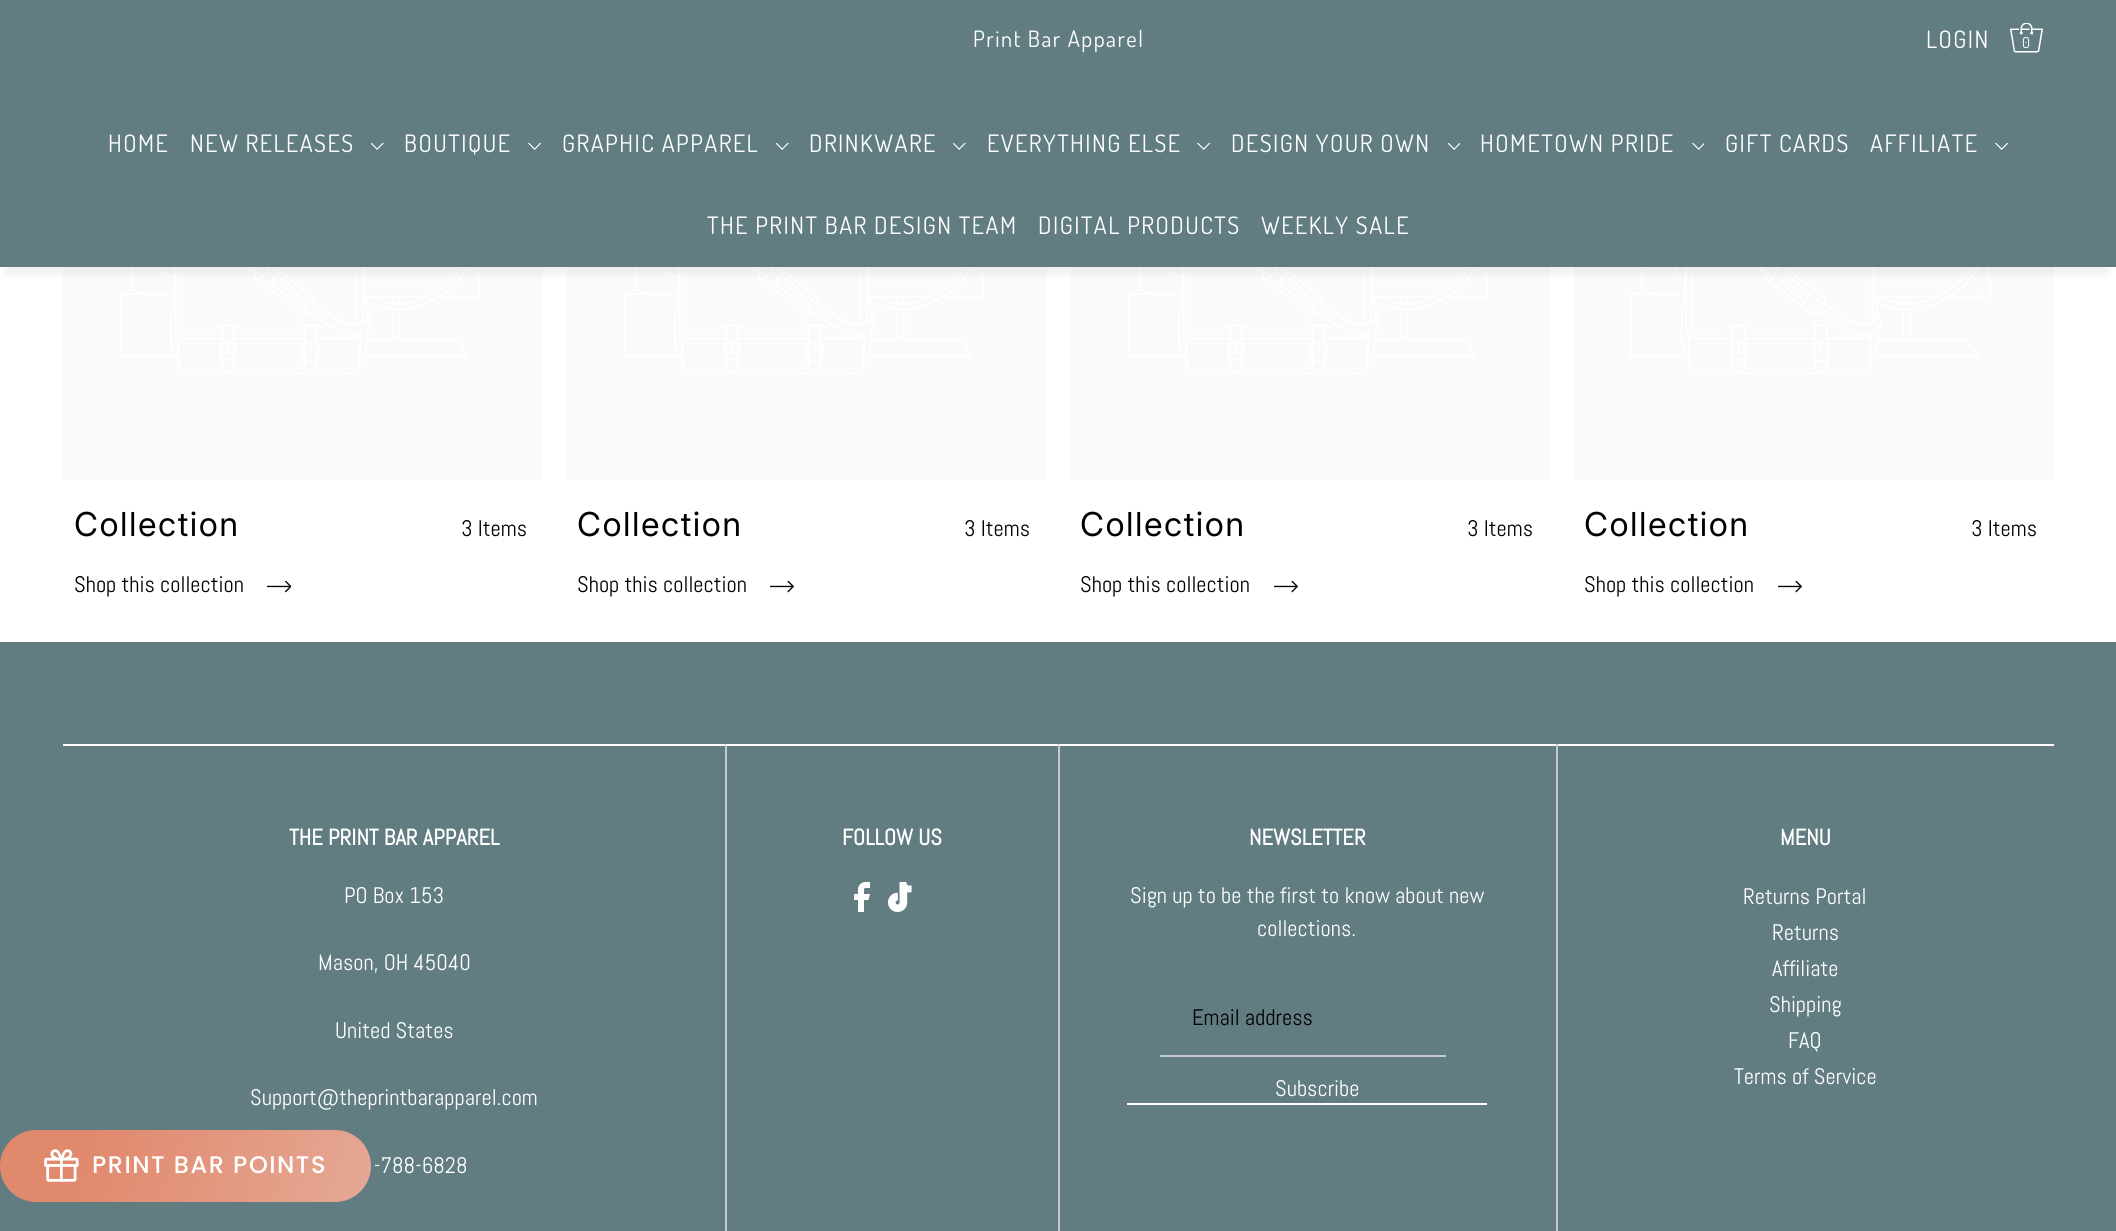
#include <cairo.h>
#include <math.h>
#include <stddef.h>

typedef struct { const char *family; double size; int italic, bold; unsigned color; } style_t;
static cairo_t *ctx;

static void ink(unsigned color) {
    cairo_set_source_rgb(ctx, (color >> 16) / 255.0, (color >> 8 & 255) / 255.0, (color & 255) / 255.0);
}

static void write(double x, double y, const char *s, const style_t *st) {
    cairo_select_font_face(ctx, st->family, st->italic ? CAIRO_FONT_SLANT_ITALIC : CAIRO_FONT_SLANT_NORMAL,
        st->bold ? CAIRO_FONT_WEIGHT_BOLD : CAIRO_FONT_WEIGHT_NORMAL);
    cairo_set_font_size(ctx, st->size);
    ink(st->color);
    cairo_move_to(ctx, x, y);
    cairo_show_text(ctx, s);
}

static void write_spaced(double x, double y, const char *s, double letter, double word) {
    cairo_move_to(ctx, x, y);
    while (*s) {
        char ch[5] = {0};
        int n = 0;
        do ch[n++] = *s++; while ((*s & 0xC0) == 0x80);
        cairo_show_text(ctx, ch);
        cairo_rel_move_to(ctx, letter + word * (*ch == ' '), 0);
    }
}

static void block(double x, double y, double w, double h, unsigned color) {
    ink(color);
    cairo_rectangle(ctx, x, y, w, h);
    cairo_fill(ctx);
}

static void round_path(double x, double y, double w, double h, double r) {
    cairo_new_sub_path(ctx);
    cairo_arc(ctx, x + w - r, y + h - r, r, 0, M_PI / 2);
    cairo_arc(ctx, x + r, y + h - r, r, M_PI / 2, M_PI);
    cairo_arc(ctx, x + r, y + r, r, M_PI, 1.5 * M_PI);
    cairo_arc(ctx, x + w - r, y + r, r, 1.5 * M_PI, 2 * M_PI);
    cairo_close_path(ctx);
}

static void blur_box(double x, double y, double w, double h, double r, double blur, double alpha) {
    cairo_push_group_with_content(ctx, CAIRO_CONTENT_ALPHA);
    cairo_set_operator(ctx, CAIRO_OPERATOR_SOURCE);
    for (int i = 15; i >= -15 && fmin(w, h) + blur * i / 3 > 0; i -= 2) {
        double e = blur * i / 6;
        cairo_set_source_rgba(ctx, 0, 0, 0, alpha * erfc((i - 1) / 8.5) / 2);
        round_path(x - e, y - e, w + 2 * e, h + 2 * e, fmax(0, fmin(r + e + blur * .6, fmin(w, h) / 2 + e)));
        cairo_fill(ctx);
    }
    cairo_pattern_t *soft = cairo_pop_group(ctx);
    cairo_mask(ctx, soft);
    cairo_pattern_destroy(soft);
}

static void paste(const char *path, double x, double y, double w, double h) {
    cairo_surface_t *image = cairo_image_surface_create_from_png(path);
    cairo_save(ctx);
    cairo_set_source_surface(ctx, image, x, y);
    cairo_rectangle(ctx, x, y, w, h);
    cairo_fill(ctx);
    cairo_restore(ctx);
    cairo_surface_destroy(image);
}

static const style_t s1 = {"Dosis", 15, 0, 0, 0xffffff};
static const style_t s2 = {"Abel", 22.5, 0, 0, 0x000000};
static const style_t s3 = {"Abel", 22.5, 0, 1, 0xffffff};
static const style_t s4 = {"Abel", 22.5, 0, 0, 0xffffff};

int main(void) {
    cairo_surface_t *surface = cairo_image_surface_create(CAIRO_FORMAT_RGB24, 2116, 1231);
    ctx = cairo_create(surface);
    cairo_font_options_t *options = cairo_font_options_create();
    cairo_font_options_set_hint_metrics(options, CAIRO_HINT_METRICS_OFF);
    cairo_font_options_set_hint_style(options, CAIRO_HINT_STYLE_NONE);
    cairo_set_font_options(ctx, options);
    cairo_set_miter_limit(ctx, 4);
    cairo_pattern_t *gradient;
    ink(0xffffff);
    cairo_paint(ctx);
    block(63, 267, 480, 213, 0xfafafa);
    paste("pic6.png", 120, 267, 361, 107);
    block(567, 267, 480, 213, 0xfafafa);
    paste("pic8.png", 624, 267, 361, 107);
    block(1071, 267, 479, 213, 0xfafafa);
    paste("pic6.png", 1128, 267, 361, 107);
    block(1574, 267, 480, 213, 0xfafafa);
    paste("pic11.png", 1630, 267, 362, 107);
    ink(0x000000);
    blur_box(5, 20, 2104, 255, 0, 3, 0.05);
    block(0, 0, 2116, 267, 0x617d82);
    cairo_select_font_face(ctx, "Dosis", CAIRO_FONT_SLANT_NORMAL, CAIRO_FONT_WEIGHT_NORMAL);
    cairo_set_font_size(ctx, 22.5);
    ink(0xffffff);
    write_spaced(973, 47, "Print Bar Apparel", 1.5, 0);
    cairo_set_font_size(ctx, 24);
    write_spaced(1926, 48, "LOGIN", 1.5, 0);
    paste("pic1.png", 2010, 23, 33, 30);
    write(2022, 48, "0", &s1);
    cairo_set_font_size(ctx, 24);
    write_spaced(108, 152, "HOME", 1.5, 0);
    write_spaced(190, 152, "NEW RELEASES", 1.5, 0);
    paste("pic2.png", 371, 143, 13, 7);
    write_spaced(404, 152, "BOUTIQUE", 1.5, 0);
    paste("pic3.png", 528, 143, 14, 7);
    write_spaced(562, 152, "GRAPHIC APPAREL", 1.5, 0);
    paste("pic2.png", 776, 143, 13, 7);
    write_spaced(809, 152, "DRINKWARE", 1.5, 0);
    paste("pic2.png", 953, 143, 13, 7);
    write_spaced(987, 152, "EVERYTHING ELSE", 1.5, 0);
    paste("pic3.png", 1197, 143, 14, 7);
    write_spaced(1231, 152, "DESIGN YOUR OWN", 1.5, 0);
    paste("pic4.png", 1448, 143, 12, 7);
    write_spaced(1480, 152, "HOMETOWN PRIDE", 1.5, 0);
    paste("pic5.png", 1692, 143, 12, 7);
    write_spaced(1725, 152, "GIFT CARDS", 1.5, 0);
    write_spaced(1870, 152, "AFFILIATE", 1.5, 0);
    paste("pic3.png", 1995, 143, 14, 7);
    write_spaced(707, 234, "THE PRINT BAR DESIGN TEAM", 1.5, 0);
    write_spaced(1038, 234, "DIGITAL PRODUCTS", 1.5, 0);
    write_spaced(1261, 234, "WEEKLY SALE", 1.5, 0);
    cairo_select_font_face(ctx, "Inter", CAIRO_FONT_SLANT_NORMAL, CAIRO_FONT_WEIGHT_NORMAL);
    cairo_set_font_size(ctx, 33);
    ink(0x000000);
    write_spaced(74, 536, "Collection", 1.5, 0);
    write(461, 536, "3 Items", &s2);
    write(74, 592, "Shop this collection", &s2);
    paste("pic7.png", 267, 581, 24, 12);
    cairo_select_font_face(ctx, "Inter", CAIRO_FONT_SLANT_NORMAL, CAIRO_FONT_WEIGHT_NORMAL);
    cairo_set_font_size(ctx, 33);
    write_spaced(577, 536, "Collection", 1.5, 0);
    write(964, 536, "3 Items", &s2);
    write(577, 592, "Shop this collection", &s2);
    paste("pic9.png", 770, 581, 25, 12);
    cairo_select_font_face(ctx, "Inter", CAIRO_FONT_SLANT_NORMAL, CAIRO_FONT_WEIGHT_NORMAL);
    cairo_set_font_size(ctx, 33);
    write_spaced(1080, 536, "Collection", 1.5, 0);
    write(1467, 536, "3 Items", &s2);
    write(1080, 592, "Shop this collection", &s2);
    paste("pic10.png", 1274, 581, 24, 12);
    cairo_select_font_face(ctx, "Inter", CAIRO_FONT_SLANT_NORMAL, CAIRO_FONT_WEIGHT_NORMAL);
    cairo_set_font_size(ctx, 33);
    write_spaced(1584, 536, "Collection", 1.5, 0);
    write(1971, 536, "3 Items", &s2);
    write(1584, 592, "Shop this collection", &s2);
    paste("pic10.png", 1778, 581, 24, 12);
    block(0, 642, 2116, 589, 0x617d82);
    block(63, 744, 663, 2, 0xffffff);
    block(725, 744, 2, 487, 0xc8c8c8);
    write(289, 845, "THE PRINT BAR APPAREL", &s3);
    write(344, 903, "PO Box 153", &s4);
    write(318, 970, "Mason, OH 45040", &s4);
    write(335, 1038, "United States", &s4);
    write(250, 1105, "Support@theprintbarapparel.com", &s4);
    write(374, 1173, "-788-6828", &s4);
    block(726, 744, 333, 2, 0xffffff);
    block(1058, 744, 2, 487, 0xc8c8c8);
    write(842, 845, "FOLLOW US", &s3);
    paste("pic12.png", 854, 882, 16, 30);
    paste("pic13.png", 888, 882, 24, 30);
    block(1059, 744, 995, 2, 0xffffff);
    write(1249, 845, "NEWSLETTER", &s3);
    write(1130, 903, "Sign up to be the first to know about new", &s4);
    write(1257, 936, "collections.", &s4);
    block(1127, 1103, 360, 2, 0xffffff);
    block(1160, 1055, 286, 2, 0xc8c8c8);
    write(1192, 1025, "Email address", &s2);
    write(1275, 1096, "Subscribe", &s4);
    block(1556, 744, 2, 487, 0xc8c8c8);
    write(1780, 845, "MENU", &s3);
    write(1743, 904, "Returns Portal", &s4);
    write(1772, 940, "Returns", &s4);
    write(1772, 976, "Affiliate", &s4);
    write(1769, 1012, "Shipping", &s4);
    write(1788, 1048, "FAQ", &s4);
    write(1734, 1084, "Terms of Service", &s4);
    gradient = cairo_pattern_create_linear(9, 1103, 502, 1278);
    cairo_pattern_add_color_stop_rgba(gradient, 0.17, 0.882, 0.537, 0.427, 1);
    cairo_pattern_add_color_stop_rgba(gradient, 1, 0.906, 0.725, 0.667, 1);
    cairo_set_source(ctx, gradient);
    cairo_pattern_destroy(gradient);
    round_path(0, 1130, 371, 72, 36);
    cairo_fill(ctx);
    paste("pic14.png", 44, 1149, 35, 33);
    cairo_select_font_face(ctx, "Poppins Medium", CAIRO_FONT_SLANT_NORMAL, CAIRO_FONT_WEIGHT_NORMAL);
    cairo_set_font_size(ctx, 24);
    ink(0xffffff);
    write_spaced(92, 1173, "PRINT BAR POINTS", 1.5, 0);
    cairo_surface_write_to_png(surface, "screenshot.png");
    cairo_font_options_destroy(options);
    cairo_destroy(ctx);
    cairo_surface_destroy(surface);
    return 0;
}
